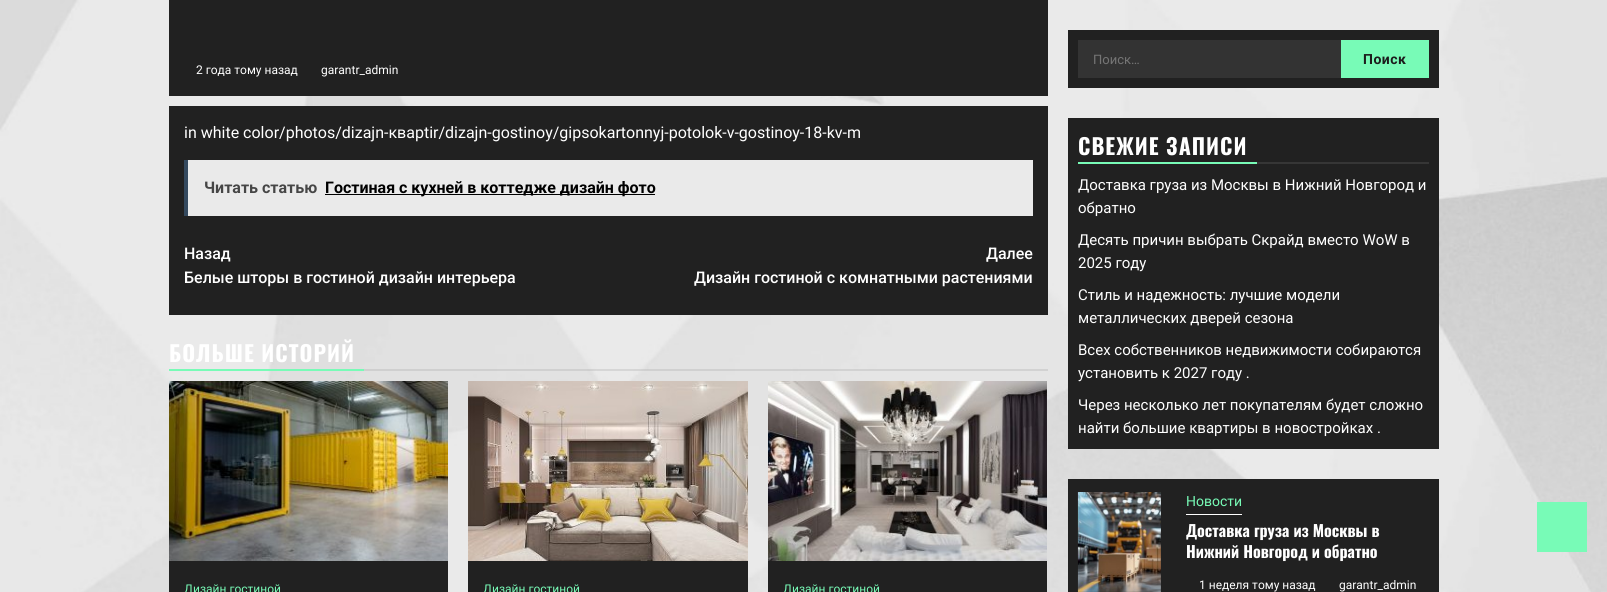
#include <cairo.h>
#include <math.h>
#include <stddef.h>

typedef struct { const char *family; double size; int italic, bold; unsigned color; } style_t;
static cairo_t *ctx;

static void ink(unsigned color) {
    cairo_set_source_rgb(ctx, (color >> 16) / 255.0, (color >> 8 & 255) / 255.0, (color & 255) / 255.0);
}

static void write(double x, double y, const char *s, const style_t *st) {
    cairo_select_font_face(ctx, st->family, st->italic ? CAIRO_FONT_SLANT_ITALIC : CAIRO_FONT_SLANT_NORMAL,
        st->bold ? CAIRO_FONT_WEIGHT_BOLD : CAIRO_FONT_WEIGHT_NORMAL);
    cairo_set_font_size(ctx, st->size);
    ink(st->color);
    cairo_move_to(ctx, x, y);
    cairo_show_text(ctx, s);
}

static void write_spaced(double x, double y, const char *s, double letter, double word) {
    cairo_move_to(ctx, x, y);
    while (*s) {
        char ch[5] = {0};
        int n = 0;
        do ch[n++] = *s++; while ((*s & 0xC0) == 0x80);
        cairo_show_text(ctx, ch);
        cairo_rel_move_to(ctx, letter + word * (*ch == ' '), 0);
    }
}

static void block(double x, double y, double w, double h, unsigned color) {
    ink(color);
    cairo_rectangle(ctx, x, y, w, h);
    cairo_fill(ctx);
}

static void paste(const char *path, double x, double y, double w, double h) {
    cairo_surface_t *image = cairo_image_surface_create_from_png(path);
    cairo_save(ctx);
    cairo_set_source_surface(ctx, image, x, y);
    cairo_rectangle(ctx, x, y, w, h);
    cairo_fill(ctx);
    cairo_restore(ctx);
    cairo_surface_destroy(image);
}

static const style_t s1 = {"Roboto", 12, 0, 0, 0xffffff};
static const style_t s2 = {"Roboto", 16, 0, 0, 0xffffff};
static const style_t s3 = {"Roboto", 16, 0, 1, 0x464646};
static const style_t s4 = {"Roboto", 16, 0, 1, 0x000000};
static const style_t s5 = {"Roboto Medium", 16, 0, 0, 0xffffff};
static const style_t s6 = {"Roboto", 12, 0, 0, 0x78fbb7};
static const style_t s7 = {"Roboto", 13, 0, 0, 0x757575};
static const style_t s8 = {"Roboto", 15, 0, 0, 0xffffff};
static const style_t s9 = {"Roboto", 14, 0, 0, 0x78fbb7};
static const style_t s10 = {"Oswald", 16, 0, 1, 0xffffff};

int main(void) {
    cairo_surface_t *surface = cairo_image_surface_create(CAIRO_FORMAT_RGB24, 1607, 592);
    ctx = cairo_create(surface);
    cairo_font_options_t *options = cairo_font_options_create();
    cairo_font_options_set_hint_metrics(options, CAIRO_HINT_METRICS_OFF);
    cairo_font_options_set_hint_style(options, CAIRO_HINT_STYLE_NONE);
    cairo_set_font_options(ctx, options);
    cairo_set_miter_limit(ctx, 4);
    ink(0xffffff);
    cairo_paint(ctx);
    paste("pic1.png", 0, 0, 1607, 592);
    block(169, 0, 879, 96, 0x212121);
    write(196, 74, "2 года тому назад", &s1);
    write(321, 74, "garantr_admin", &s1);
    block(169, 106, 879, 209, 0x212121);
    write(184, 138, "in white color/photos/dizajn-кварtir/dizajn-gostinoy/gipsokartonnyj-potolok-v-gostinoy-18-kv-m", &s2);
    block(188, 160, 845, 56, 0xeaeaea);
    block(184, 160, 4, 56, 0x34495e);
    write(204, 193, "Читать статью", &s3);
    block(325, 194, 330, 1, 0x000000);
    write(325, 193, "Гостиная с кухней в коттедже дизайн фото", &s4);
    write(184, 259, "Назад", &s5);
    write(184, 283, "Белые шторы в гостиной дизайн интерьера", &s5);
    write(986, 259, "Далее", &s5);
    write(694, 283, "Дизайн гостиной с комнатными растениями", &s5);
    block(169, 369, 195, 2, 0x78fbb7);
    cairo_select_font_face(ctx, "Oswald", CAIRO_FONT_SLANT_NORMAL, CAIRO_FONT_WEIGHT_BOLD);
    cairo_set_font_size(ctx, 22);
    ink(0xffffff);
    write_spaced(169, 362, "БОЛЬШЕ ИСТОРИЙ", 1, 0);
    cairo_set_source_rgba(ctx, 0.537, 0.537, 0.537, 0.2);
    cairo_rectangle(ctx, 364, 369, 684, 2);
    cairo_fill(ctx);
    block(169, 561, 279, 31, 0x212121);
    paste("pic2.png", 169, 381, 279, 180);
    write(184, 593, "Дизайн гостиной", &s6);
    block(468, 561, 280, 31, 0x212121);
    paste("pic3.png", 468, 381, 280, 180);
    write(483, 593, "Дизайн гостиной", &s6);
    block(768, 561, 279, 31, 0x212121);
    paste("pic4.png", 768, 381, 279, 180);
    write(783, 593, "Дизайн гостиной", &s6);
    block(1068, 30, 371, 58, 0x212121);
    block(1078, 40, 263, 38, 0x333333);
    write(1093, 64, "Поиск…", &s7);
    block(1341, 40, 88, 38, 0x78fbb7);
    cairo_select_font_face(ctx, "Roboto", CAIRO_FONT_SLANT_NORMAL, CAIRO_FONT_WEIGHT_BOLD);
    cairo_set_font_size(ctx, 14);
    ink(0x1c1c1c);
    write_spaced(1363, 64, "Поиск", 0.5, 0);
    block(1068, 118, 371, 331, 0x212121);
    block(1078, 162, 179, 2, 0x78fbb7);
    cairo_select_font_face(ctx, "Oswald", CAIRO_FONT_SLANT_NORMAL, CAIRO_FONT_WEIGHT_BOLD);
    cairo_set_font_size(ctx, 22);
    ink(0xffffff);
    write_spaced(1078, 155, "СВЕЖИЕ ЗАПИСИ", 1, 0);
    block(1257, 162, 172, 2, 0x363636);
    write(1078, 190, "Доставка груза из Москвы в Нижний Новгород и", &s8);
    write(1078, 213, "обратно", &s8);
    write(1078, 245, "Десять причин выбрать Скрайд вместо WoW в", &s8);
    write(1078, 268, "2025 году", &s8);
    write(1078, 300, "Стиль и надежность: лучшие модели", &s8);
    write(1078, 323, "металлических дверей сезона", &s8);
    write(1078, 355, "Всех собственников недвижимости собираются", &s8);
    write(1078, 378, "установить к 2027 году .", &s8);
    write(1078, 410, "Через несколько лет покупателям будет сложно", &s8);
    write(1078, 433, "найти большие квартиры в новостройках .", &s8);
    block(1068, 479, 371, 113, 0x212121);
    paste("pic5.png", 1077, 492, 84, 100);
    block(1186, 514, 56, 1, 0xffffff);
    write(1186, 506, "Новости", &s9);
    write(1186, 537, "Доставка груза из Москвы в", &s10);
    write(1186, 558, "Нижний Новгород и обратно", &s10);
    write(1199, 589, "1 неделя тому назад", &s1);
    write(1339, 589, "garantr_admin", &s1);
    block(1537, 502, 50, 50, 0x78fbb7);
    cairo_surface_write_to_png(surface, "screenshot.png");
    cairo_font_options_destroy(options);
    cairo_destroy(ctx);
    cairo_surface_destroy(surface);
    return 0;
}
